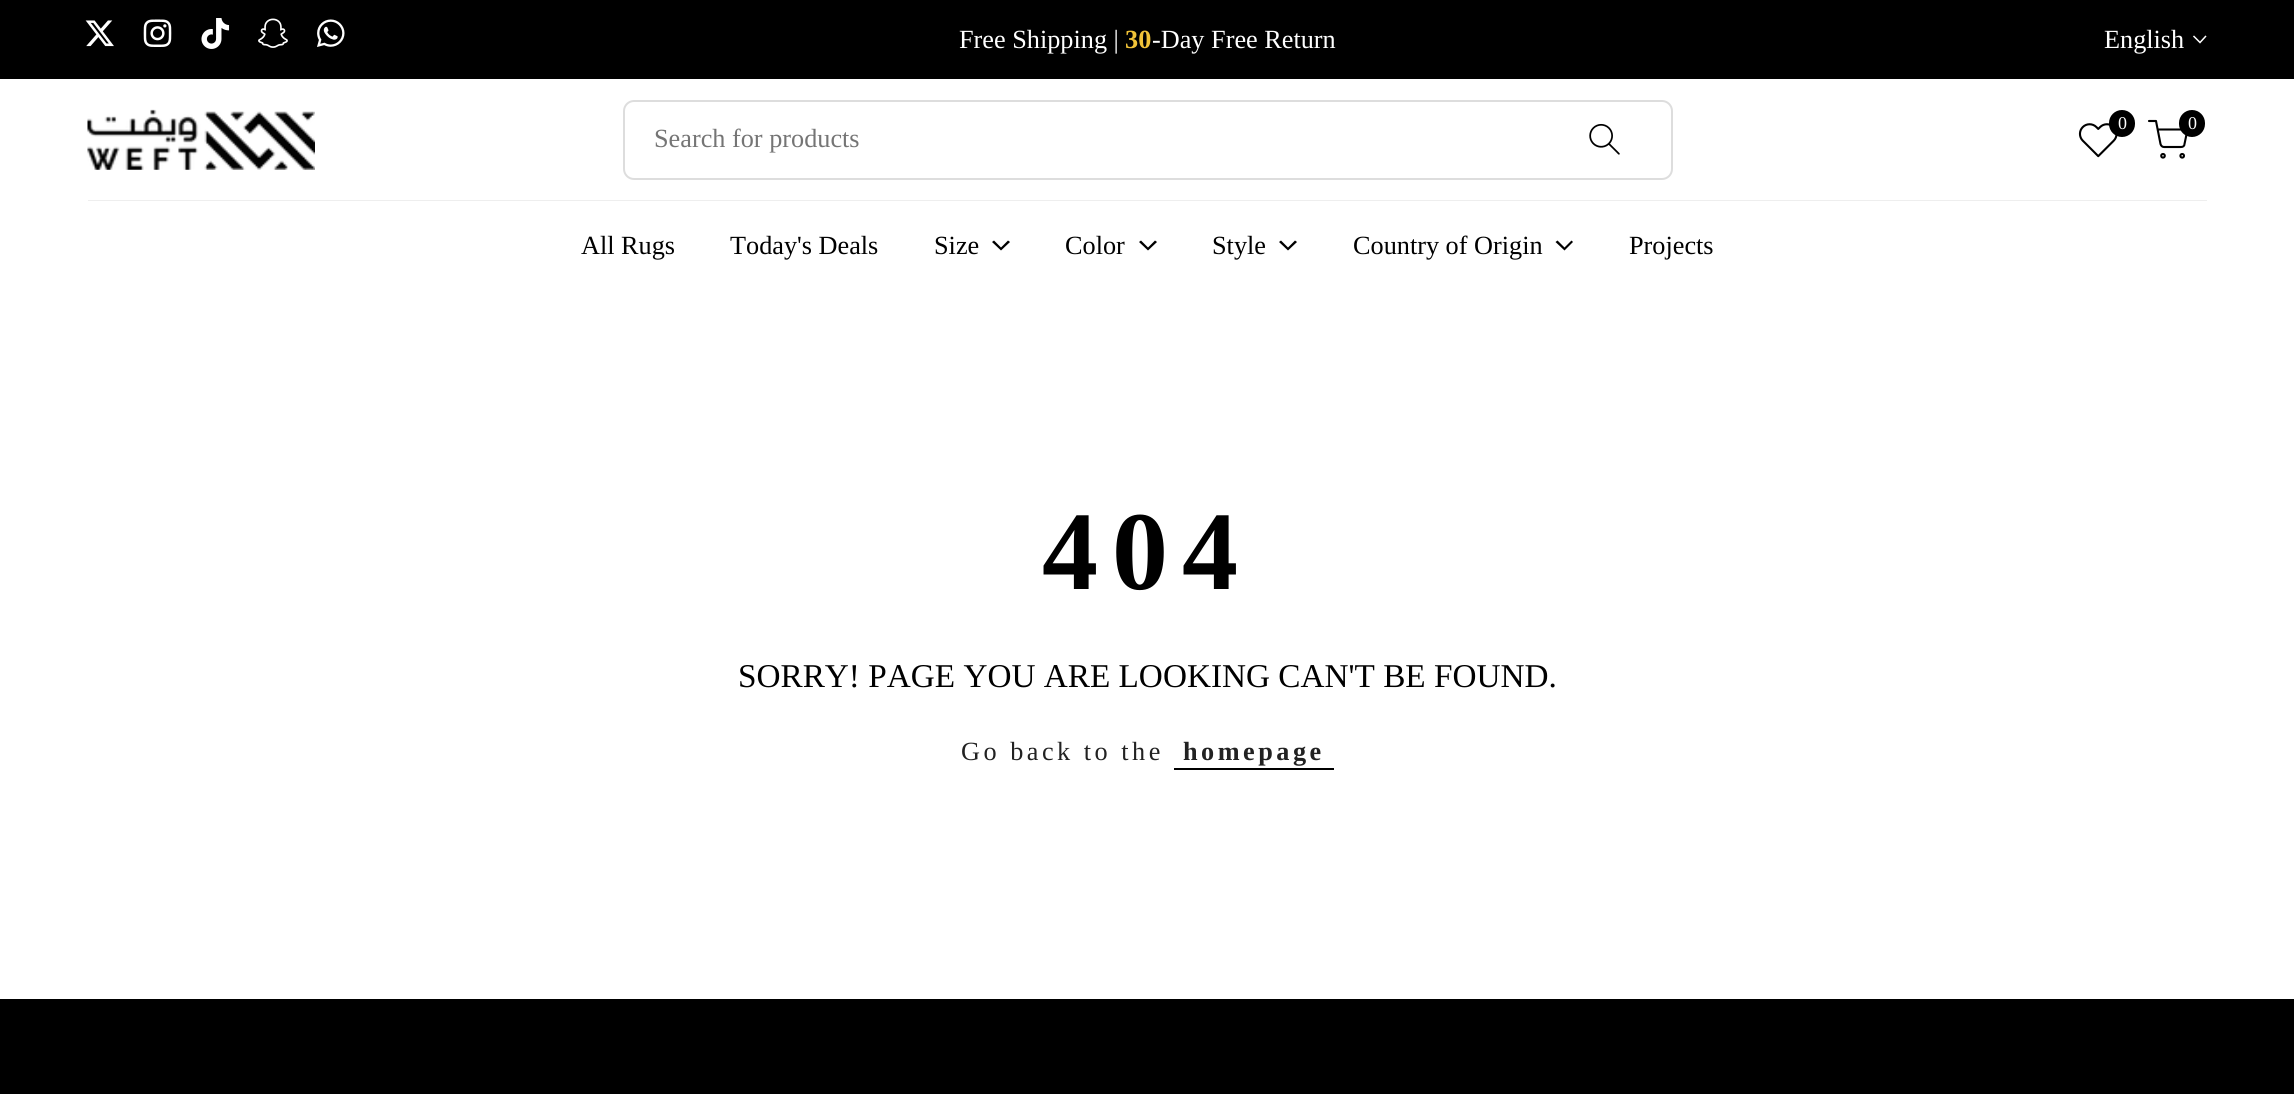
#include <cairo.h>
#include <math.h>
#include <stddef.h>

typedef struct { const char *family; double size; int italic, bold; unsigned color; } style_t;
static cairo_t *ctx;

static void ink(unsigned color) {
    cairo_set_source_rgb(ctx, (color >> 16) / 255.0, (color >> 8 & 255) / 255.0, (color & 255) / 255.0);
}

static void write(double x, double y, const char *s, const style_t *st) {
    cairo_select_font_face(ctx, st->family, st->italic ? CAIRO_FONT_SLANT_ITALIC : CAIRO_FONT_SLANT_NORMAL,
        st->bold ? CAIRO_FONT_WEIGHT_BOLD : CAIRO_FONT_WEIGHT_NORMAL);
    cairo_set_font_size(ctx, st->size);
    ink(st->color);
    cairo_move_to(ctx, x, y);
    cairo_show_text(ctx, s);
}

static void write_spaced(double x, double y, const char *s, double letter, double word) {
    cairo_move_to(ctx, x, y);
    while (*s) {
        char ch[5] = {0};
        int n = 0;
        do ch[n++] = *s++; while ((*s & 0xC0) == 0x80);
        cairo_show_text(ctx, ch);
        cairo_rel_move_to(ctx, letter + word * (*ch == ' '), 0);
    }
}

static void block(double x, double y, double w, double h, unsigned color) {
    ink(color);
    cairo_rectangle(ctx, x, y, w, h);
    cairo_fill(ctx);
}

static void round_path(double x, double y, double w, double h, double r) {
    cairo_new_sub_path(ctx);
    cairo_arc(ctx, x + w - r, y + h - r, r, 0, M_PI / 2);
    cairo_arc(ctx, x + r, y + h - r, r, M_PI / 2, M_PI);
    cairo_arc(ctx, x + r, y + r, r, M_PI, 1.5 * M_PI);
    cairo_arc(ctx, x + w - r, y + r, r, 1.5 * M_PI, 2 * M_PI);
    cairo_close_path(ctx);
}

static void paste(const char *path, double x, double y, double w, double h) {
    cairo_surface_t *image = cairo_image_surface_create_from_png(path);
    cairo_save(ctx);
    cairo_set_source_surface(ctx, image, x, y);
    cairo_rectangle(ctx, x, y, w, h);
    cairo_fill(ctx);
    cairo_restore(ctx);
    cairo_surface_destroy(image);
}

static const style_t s1 = {"Liberation Serif", 26.25, 0, 0, 0xffffff};
static const style_t s2 = {"Liberation Serif", 26.25, 0, 1, 0xf1c338};
static const style_t s3 = {"Liberation Serif", 18, 0, 0, 0xffffff};
static const style_t s4 = {"Liberation Serif", 26.25, 0, 0, 0x757575};
static const style_t s5 = {"Liberation Serif", 26.25, 0, 0, 0x000000};
static const style_t s6 = {"Liberation Serif", 33.25, 0, 0, 0x000000};

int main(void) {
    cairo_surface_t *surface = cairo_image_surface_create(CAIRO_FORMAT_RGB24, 2294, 1094);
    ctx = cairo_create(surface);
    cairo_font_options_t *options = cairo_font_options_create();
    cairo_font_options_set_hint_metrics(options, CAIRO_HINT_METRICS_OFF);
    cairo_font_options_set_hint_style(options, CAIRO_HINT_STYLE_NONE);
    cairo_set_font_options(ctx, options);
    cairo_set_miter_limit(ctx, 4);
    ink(0xffffff);
    cairo_paint(ctx);
    block(0, 0, 2294, 79, 0x000000);
    paste("pic1.png", 85, 20, 29, 27);
    paste("pic2.png", 143, 19, 29, 28);
    paste("pic3.png", 201, 18, 29, 31);
    paste("pic4.png", 258, 18, 30, 30);
    paste("pic5.png", 317, 19, 28, 28);
    write(959, 48, "Free Shipping |", &s1);
    write(1125, 48, "30", &s2);
    write(1152, 48, "-Day Free Return", &s1);
    write(2104, 48, "English", &s1);
    cairo_new_path(ctx);
    cairo_move_to(ctx, 2205.5, 36.5);
    cairo_line_to(ctx, 2200, 42.5);
    cairo_line_to(ctx, 2194, 36.5);
    cairo_set_line_width(ctx, 1.5);
    cairo_set_line_cap(ctx, CAIRO_LINE_CAP_SQUARE);
    cairo_stroke(ctx);
    block(88, 200, 2119, 1, 0xeeeeee);
    paste("pic6.png", 87, 109, 228, 61);
    paste("pic7.png", 2078, 123, 40, 35);
    ink(0x000000);
    round_path(2109, 110, 26, 27, 13);
    cairo_fill(ctx);
    write(2118, 129, "0", &s3);
    cairo_new_path(ctx);
    cairo_arc(ctx, 2163, 155.8, 1.8, 0, 2 * M_PI);
    ink(0x000000);
    cairo_set_line_width(ctx, 2.1);
    cairo_set_line_cap(ctx, CAIRO_LINE_CAP_BUTT);
    cairo_stroke(ctx);
    cairo_arc(ctx, 2182.2, 155.8, 1.8, 0, 2 * M_PI);
    cairo_stroke(ctx);
    cairo_new_path(ctx);
    cairo_move_to(ctx, 2149, 121);
    cairo_line_to(ctx, 2156, 121);
    cairo_line_to(ctx, 2160.5, 144);
    cairo_curve_to(ctx, 2161, 146, 2162.5, 147, 2164, 147);
    cairo_line_to(ctx, 2181, 147);
    cairo_curve_to(ctx, 2183, 147, 2184.5, 146, 2184.5, 144);
    cairo_line_to(ctx, 2187.5, 129.5);
    cairo_line_to(ctx, 2158, 129.5);
    cairo_set_line_cap(ctx, CAIRO_LINE_CAP_ROUND);
    cairo_set_line_join(ctx, CAIRO_LINE_JOIN_ROUND);
    cairo_stroke(ctx);
    round_path(2179, 110, 26, 27, 13);
    cairo_fill(ctx);
    write(2188, 129, "0", &s3);
    round_path(624, 101, 1048, 78, 10);
    ink(0xdddddd);
    cairo_set_line_width(ctx, 2);
    cairo_set_line_cap(ctx, CAIRO_LINE_CAP_BUTT);
    cairo_set_line_join(ctx, CAIRO_LINE_JOIN_MITER);
    cairo_stroke(ctx);
    write(654, 147, "Search for products", &s4);
    paste("pic8.png", 1589, 123, 31, 32);
    write(581, 254, "All Rugs", &s5);
    write(730, 254, "Today's Deals", &s5);
    write(934, 254, "Size", &s5);
    cairo_new_path(ctx);
    cairo_move_to(ctx, 1010, 242);
    cairo_line_to(ctx, 1001, 250.5);
    cairo_line_to(ctx, 992, 242);
    cairo_line_to(ctx, 994, 240.5);
    cairo_line_to(ctx, 1001, 247.5);
    cairo_line_to(ctx, 1008, 240.5);
    cairo_close_path(ctx);
    cairo_fill(ctx);
    write(1065, 254, "Color", &s5);
    cairo_new_path(ctx);
    cairo_move_to(ctx, 1157, 242);
    cairo_line_to(ctx, 1148, 250.5);
    cairo_line_to(ctx, 1139, 242);
    cairo_line_to(ctx, 1141, 240.5);
    cairo_line_to(ctx, 1148, 247.5);
    cairo_line_to(ctx, 1155, 240.5);
    cairo_close_path(ctx);
    cairo_fill(ctx);
    write(1212, 254, "Style", &s5);
    cairo_new_path(ctx);
    cairo_move_to(ctx, 1297, 242);
    cairo_line_to(ctx, 1288, 250.5);
    cairo_line_to(ctx, 1279, 242);
    cairo_line_to(ctx, 1281, 240.5);
    cairo_line_to(ctx, 1288, 247.5);
    cairo_line_to(ctx, 1295, 240.5);
    cairo_close_path(ctx);
    cairo_fill(ctx);
    write(1353, 254, "Country of Origin", &s5);
    cairo_new_path(ctx);
    cairo_move_to(ctx, 1573, 242);
    cairo_line_to(ctx, 1564.5, 250.5);
    cairo_line_to(ctx, 1555.5, 242);
    cairo_line_to(ctx, 1557.5, 240.5);
    cairo_line_to(ctx, 1564.5, 247.5);
    cairo_line_to(ctx, 1571.5, 240.5);
    cairo_close_path(ctx);
    cairo_fill(ctx);
    write(1629, 254, "Projects", &s5);
    cairo_select_font_face(ctx, "Liberation Serif", CAIRO_FONT_SLANT_NORMAL, CAIRO_FONT_WEIGHT_BOLD);
    cairo_set_font_size(ctx, 112);
    write_spaced(1042, 589, "404", 14, 0);
    write(738, 687, "SORRY! PAGE YOU ARE LOOKING CAN'T BE FOUND.", &s6);
    cairo_set_font_size(ctx, 26.25);
    ink(0x222222);
    write_spaced(961, 760, "Go back to the", 3.5, 0);
    cairo_select_font_face(ctx, "Liberation Serif", CAIRO_FONT_SLANT_NORMAL, CAIRO_FONT_WEIGHT_BOLD);
    write_spaced(1183, 760, "homepage", 3.5, 0);
    block(1174, 768, 160, 2, 0x000000);
    block(0, 999, 2294, 95, 0x000000);
    cairo_surface_write_to_png(surface, "screenshot.png");
    cairo_font_options_destroy(options);
    cairo_destroy(ctx);
    cairo_surface_destroy(surface);
    return 0;
}
